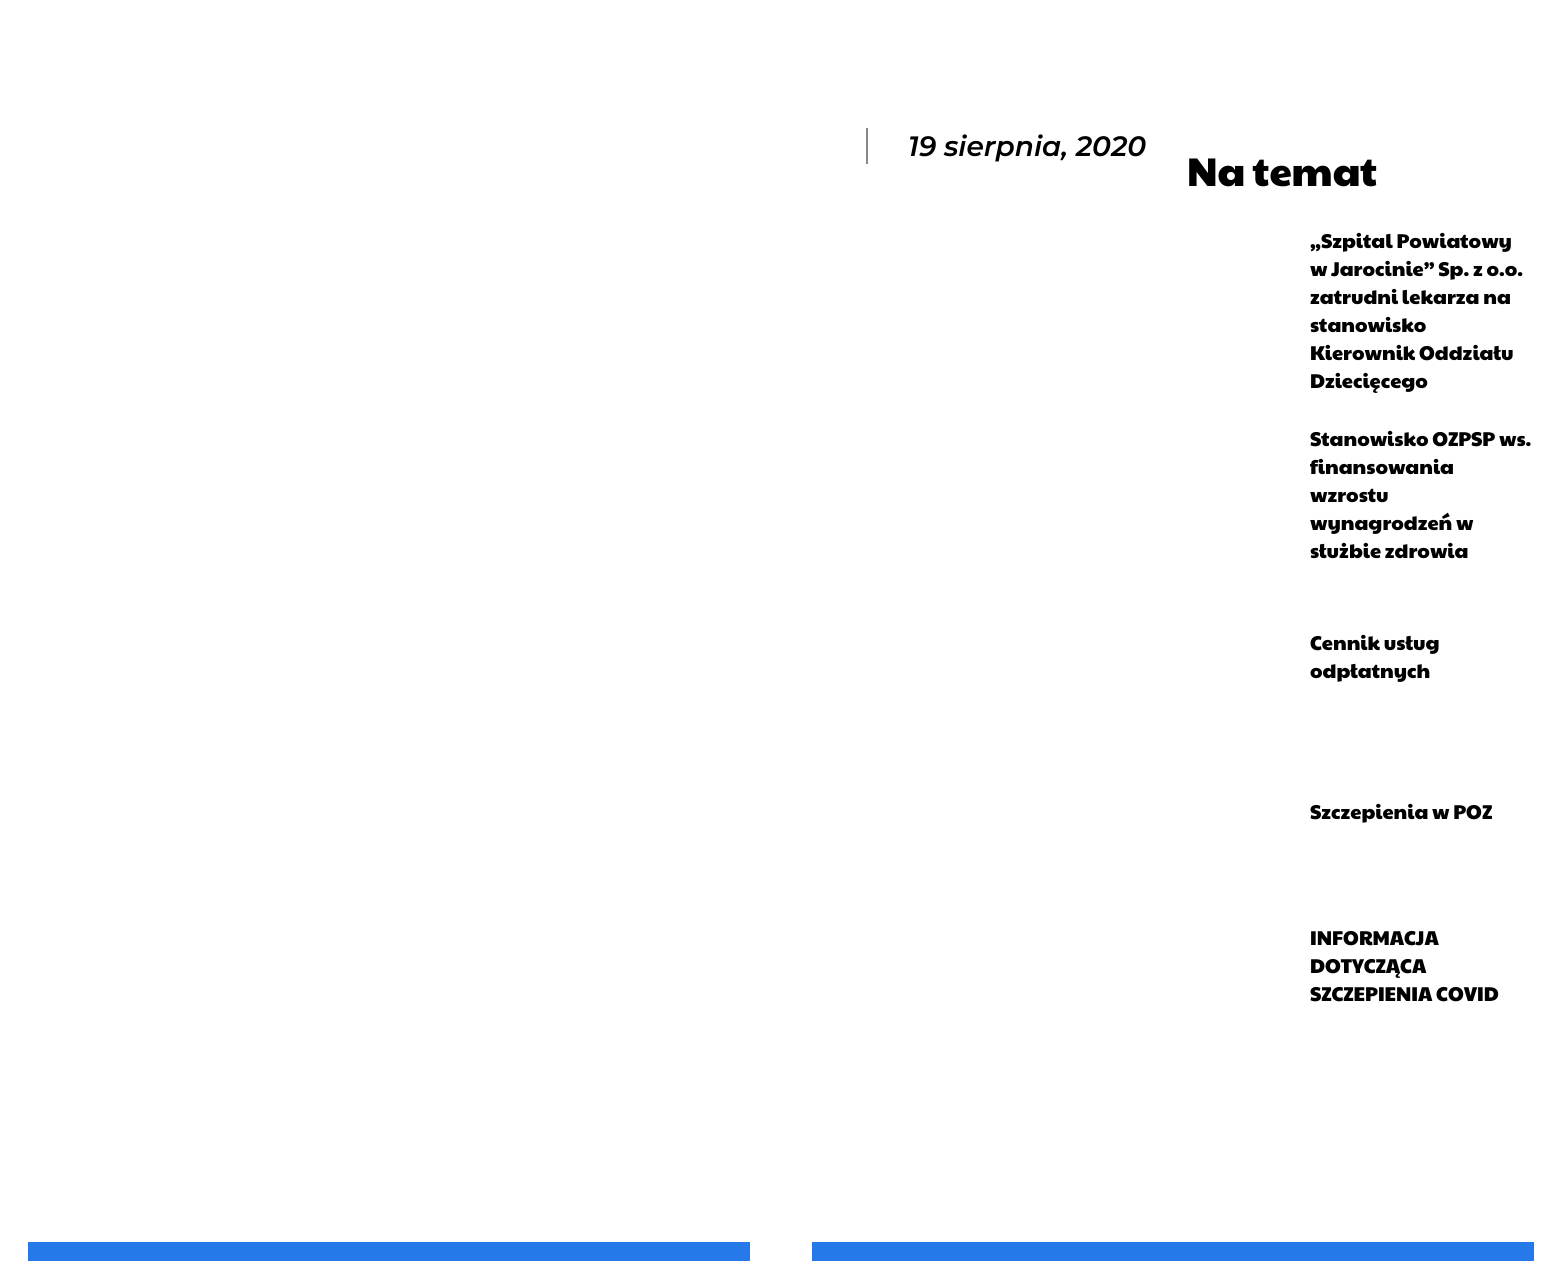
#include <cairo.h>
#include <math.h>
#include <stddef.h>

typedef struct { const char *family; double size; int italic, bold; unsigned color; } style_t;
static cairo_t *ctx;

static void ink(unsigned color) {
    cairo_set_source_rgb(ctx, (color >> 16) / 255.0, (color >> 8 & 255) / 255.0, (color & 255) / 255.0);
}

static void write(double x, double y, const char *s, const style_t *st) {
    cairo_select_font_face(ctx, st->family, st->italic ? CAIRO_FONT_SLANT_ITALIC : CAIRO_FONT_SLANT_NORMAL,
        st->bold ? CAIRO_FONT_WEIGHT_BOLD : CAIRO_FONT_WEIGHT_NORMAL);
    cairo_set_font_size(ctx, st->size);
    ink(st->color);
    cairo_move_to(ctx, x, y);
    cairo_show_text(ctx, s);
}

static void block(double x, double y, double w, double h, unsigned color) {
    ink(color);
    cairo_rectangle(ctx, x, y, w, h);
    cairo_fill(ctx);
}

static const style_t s1 = {"Montserrat SemiBold", 28, 1, 0, 0x000000};
static const style_t s2 = {"Paytone One", 40, 0, 0, 0x000000};
static const style_t s3 = {"Paytone One", 20, 0, 0, 0x000000};

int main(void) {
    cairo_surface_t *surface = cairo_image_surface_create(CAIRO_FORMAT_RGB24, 1561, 1261);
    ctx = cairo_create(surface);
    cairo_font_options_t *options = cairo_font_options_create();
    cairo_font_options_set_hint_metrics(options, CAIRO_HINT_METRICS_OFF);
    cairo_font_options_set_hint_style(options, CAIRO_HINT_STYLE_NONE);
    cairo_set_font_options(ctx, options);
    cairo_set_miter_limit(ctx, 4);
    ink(0xffffff);
    cairo_paint(ctx);
    block(866, 128, 2, 36, 0x888888);
    write(908, 156, "19 sierpnia, 2020", &s1);
    write(1187, 186, "Na temat", &s2);
    write(1310, 248, "„Szpital Powiatowy", &s3);
    write(1310, 276, "w Jarocinie” Sp. z o.o.", &s3);
    write(1310, 304, "zatrudni lekarza na", &s3);
    write(1310, 332, "stanowisko", &s3);
    write(1310, 360, "Kierownik Oddziału", &s3);
    write(1310, 388, "Dziecięcego", &s3);
    write(1310, 446, "Stanowisko OZPSP ws.", &s3);
    write(1310, 474, "finansowania", &s3);
    write(1310, 502, "wzrostu", &s3);
    write(1310, 530, "wynagrodzeń w", &s3);
    write(1310, 558, "służbie zdrowia", &s3);
    write(1310, 650, "Cennik usług", &s3);
    write(1310, 678, "odpłatnych", &s3);
    write(1310, 819, "Szczepienia w POZ", &s3);
    write(1310, 945, "INFORMACJA", &s3);
    write(1310, 973, "DOTYCZĄCA", &s3);
    write(1310, 1001, "SZCZEPIENIA COVID", &s3);
    block(28, 1242, 722, 19, 0x2579e8);
    block(812, 1242, 722, 19, 0x2579e8);
    cairo_surface_write_to_png(surface, "screenshot.png");
    cairo_font_options_destroy(options);
    cairo_destroy(ctx);
    cairo_surface_destroy(surface);
    return 0;
}
